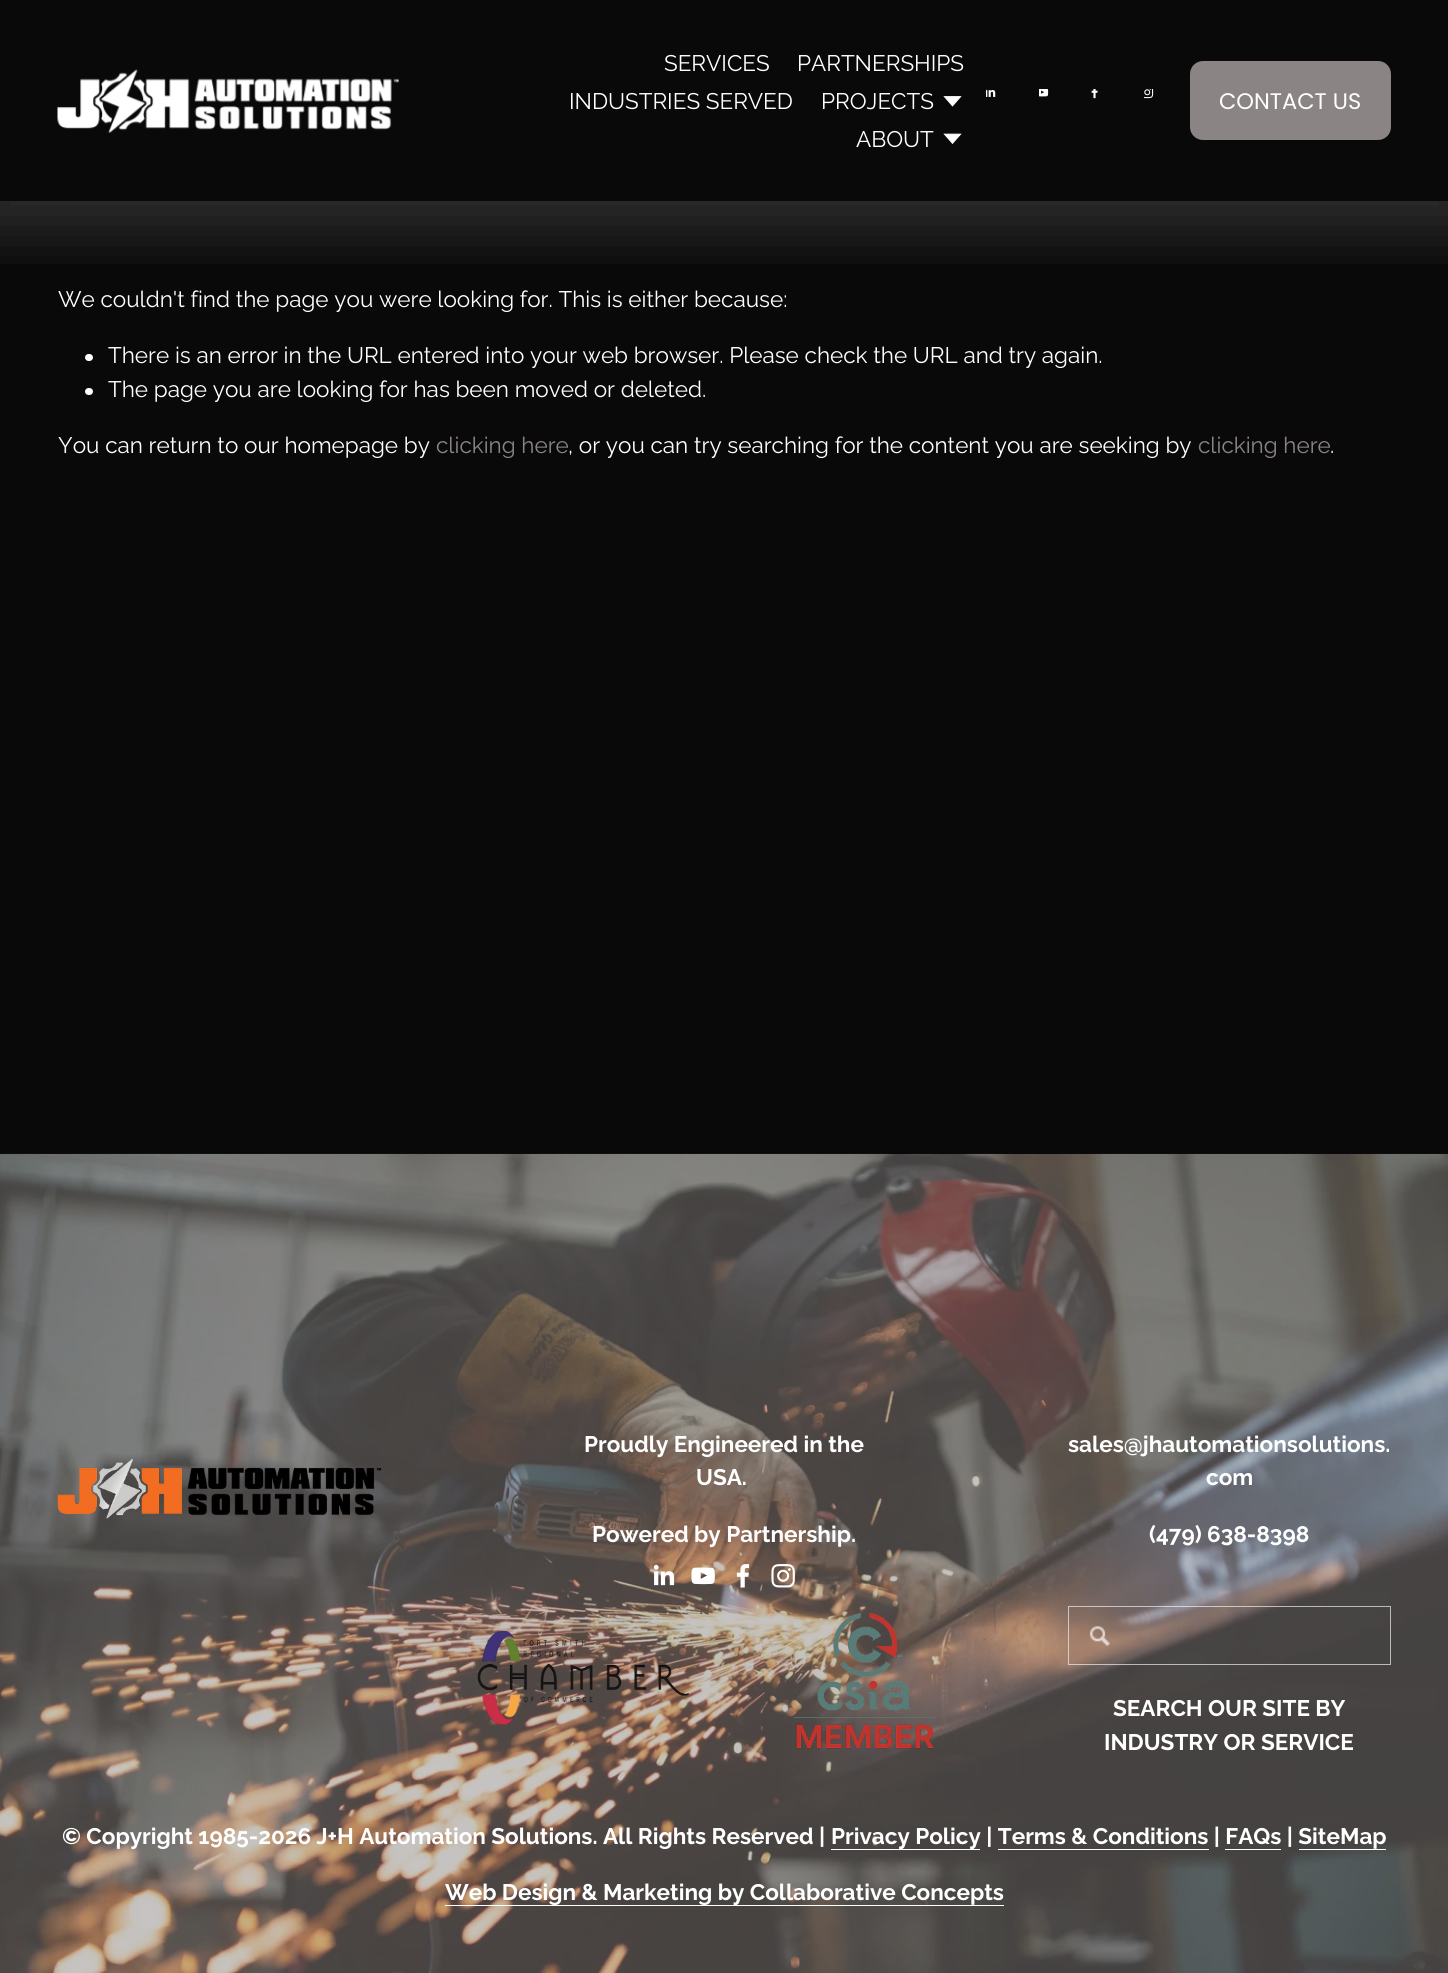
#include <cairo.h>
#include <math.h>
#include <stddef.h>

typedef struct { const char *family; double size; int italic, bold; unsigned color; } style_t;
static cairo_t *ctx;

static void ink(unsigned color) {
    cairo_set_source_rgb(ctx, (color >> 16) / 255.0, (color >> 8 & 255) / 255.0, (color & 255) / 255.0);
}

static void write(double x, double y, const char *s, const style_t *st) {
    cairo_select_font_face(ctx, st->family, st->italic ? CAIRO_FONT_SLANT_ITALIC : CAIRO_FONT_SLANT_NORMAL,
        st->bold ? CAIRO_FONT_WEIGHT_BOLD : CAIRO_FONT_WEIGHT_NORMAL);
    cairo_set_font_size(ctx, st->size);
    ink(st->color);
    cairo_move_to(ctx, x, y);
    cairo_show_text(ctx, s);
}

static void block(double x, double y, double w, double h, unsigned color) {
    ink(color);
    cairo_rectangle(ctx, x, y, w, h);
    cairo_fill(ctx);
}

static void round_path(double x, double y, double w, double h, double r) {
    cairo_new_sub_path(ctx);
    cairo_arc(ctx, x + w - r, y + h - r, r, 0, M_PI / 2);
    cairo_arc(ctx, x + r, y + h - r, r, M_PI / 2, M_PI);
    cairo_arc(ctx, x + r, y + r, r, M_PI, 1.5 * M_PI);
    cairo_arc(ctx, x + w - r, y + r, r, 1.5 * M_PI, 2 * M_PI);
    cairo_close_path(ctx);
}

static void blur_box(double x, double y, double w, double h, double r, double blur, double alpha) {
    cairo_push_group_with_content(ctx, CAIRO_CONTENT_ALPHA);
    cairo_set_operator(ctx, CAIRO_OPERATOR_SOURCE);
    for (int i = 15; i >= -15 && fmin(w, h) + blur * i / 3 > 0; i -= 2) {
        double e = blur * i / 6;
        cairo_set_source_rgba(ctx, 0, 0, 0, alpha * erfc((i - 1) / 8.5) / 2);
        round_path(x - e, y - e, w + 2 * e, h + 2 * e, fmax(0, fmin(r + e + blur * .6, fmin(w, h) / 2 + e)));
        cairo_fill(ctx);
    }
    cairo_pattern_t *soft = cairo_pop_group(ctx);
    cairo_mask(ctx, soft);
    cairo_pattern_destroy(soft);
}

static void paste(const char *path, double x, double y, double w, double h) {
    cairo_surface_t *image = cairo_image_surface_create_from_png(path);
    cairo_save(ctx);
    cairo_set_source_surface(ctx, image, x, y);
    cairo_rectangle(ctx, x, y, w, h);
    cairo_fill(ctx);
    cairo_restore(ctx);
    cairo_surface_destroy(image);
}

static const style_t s1 = {"Raleway", 22.5, 0, 0, 0xffffff};
static const style_t s2 = {"Poppins", 22.5, 0, 0, 0xffffff};
static const style_t s3 = {"Raleway", 22.5, 0, 0, 0x8b8484};
static const style_t s4 = {"Raleway", 22.5, 0, 1, 0xffffff};

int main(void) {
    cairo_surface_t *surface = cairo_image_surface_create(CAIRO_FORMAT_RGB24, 1448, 1973);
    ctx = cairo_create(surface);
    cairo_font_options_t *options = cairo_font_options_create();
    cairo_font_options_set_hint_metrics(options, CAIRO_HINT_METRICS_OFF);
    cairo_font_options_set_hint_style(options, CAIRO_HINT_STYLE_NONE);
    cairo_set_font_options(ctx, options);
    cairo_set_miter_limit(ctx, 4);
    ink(0x0a0909);
    cairo_paint(ctx);
    cairo_save(ctx);
    cairo_rectangle(ctx, 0, 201, 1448, 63);
    cairo_clip(ctx);
    ink(0xffffff);
    blur_box(-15, 0, 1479, 231, 0, 30, 0.15);
    cairo_restore(ctx);
    paste("pic1.png", 57, 69, 342, 64);
    write(664, 71, "SERVICES", &s1);
    write(797, 71, "PARTNERSHIPS", &s1);
    write(569, 109, "INDUSTRIES SERVED", &s1);
    write(821, 109, "PROJECTS", &s1);
    paste("pic2.png", 943, 96, 19, 11);
    write(856, 147, "ABOUT", &s1);
    paste("pic3.png", 943, 133, 19, 11);
    paste("pic4.png", 986, 89, 10, 8);
    paste("pic5.png", 1039, 89, 10, 8);
    paste("pic6.png", 1091, 89, 7, 10);
    paste("pic7.png", 1144, 89, 10, 10);
    ink(0x8b8484);
    round_path(1190, 61, 201, 79, 13);
    cairo_fill(ctx);
    write(1219, 109, "CONTACT US", &s2);
    write(58, 307, "We couldn't find the page you were looking for. This is either because:", &s1);
    round_path(85, 354, 8, 7, 3.5);
    cairo_fill(ctx);
    write(108, 363, "There is an error in the URL entered into your web browser. Please check the URL and try again.", &s1);
    round_path(85, 388, 8, 7, 3.5);
    cairo_fill(ctx);
    write(108, 397, "The page you are looking for has been moved or deleted.", &s1);
    write(58, 453, "You can return to our homepage by", &s1);
    write(436, 453, "clicking here", &s3);
    write(568, 453, ", or you can try searching for the content you are seeking by", &s1);
    write(1198, 453, "clicking here", &s3);
    write(1330, 453, ".", &s1);
    paste("pic8.png", 0, 1153, 1448, 820);
    paste("pic9.png", 57, 1458, 325, 61);
    write(584, 1452, "Proudly Engineered in the", &s4);
    write(696, 1485, "USA.", &s4);
    write(592, 1542, "Powered by Partnership.", &s4);
    write(1068, 1452, "sales@jhautomationsolutions.", &s4);
    write(1206, 1485, "com", &s4);
    write(1149, 1542, "(479) 638-8398", &s4);
    paste("pic10.png", 653, 1564, 22, 22);
    paste("pic11.png", 691, 1567, 24, 18);
    paste("pic12.png", 736, 1564, 13, 24);
    paste("pic13.png", 771, 1564, 24, 24);
    paste("pic14.png", 477, 1630, 212, 95);
    paste("pic15.png", 793, 1613, 142, 136);
    paste("pic16.png", 1089, 1626, 22, 21);
    cairo_rectangle(ctx, 1068.5, 1606.5, 322, 58);
    cairo_set_source_rgba(ctx, 0.933, 0.933, 0.933, 0.7);
    cairo_set_line_width(ctx, 1);
    cairo_stroke(ctx);
    write(1113, 1716, "SEARCH OUR SITE BY", &s4);
    write(1104, 1750, "INDUSTRY OR SERVICE", &s4);
    write(62, 1844, "© Copyright 1985-2026 J+H Automation Solutions. All Rights Reserved |", &s4);
    block(831, 1849, 149, 1, 0xffffff);
    write(831, 1844, "Privacy Policy | Terms & Conditions | FAQs | SiteMap", &s4);
    block(998, 1849, 211, 1, 0xffffff);
    block(1225, 1849, 56, 1, 0xffffff);
    block(1299, 1849, 87, 1, 0xffffff);
    block(445, 1905, 559, 1, 0xffffff);
    write(445, 1900, "Web Design & Marketing by Collaborative Concepts", &s4);
    cairo_surface_write_to_png(surface, "screenshot.png");
    cairo_font_options_destroy(options);
    cairo_destroy(ctx);
    cairo_surface_destroy(surface);
    return 0;
}
